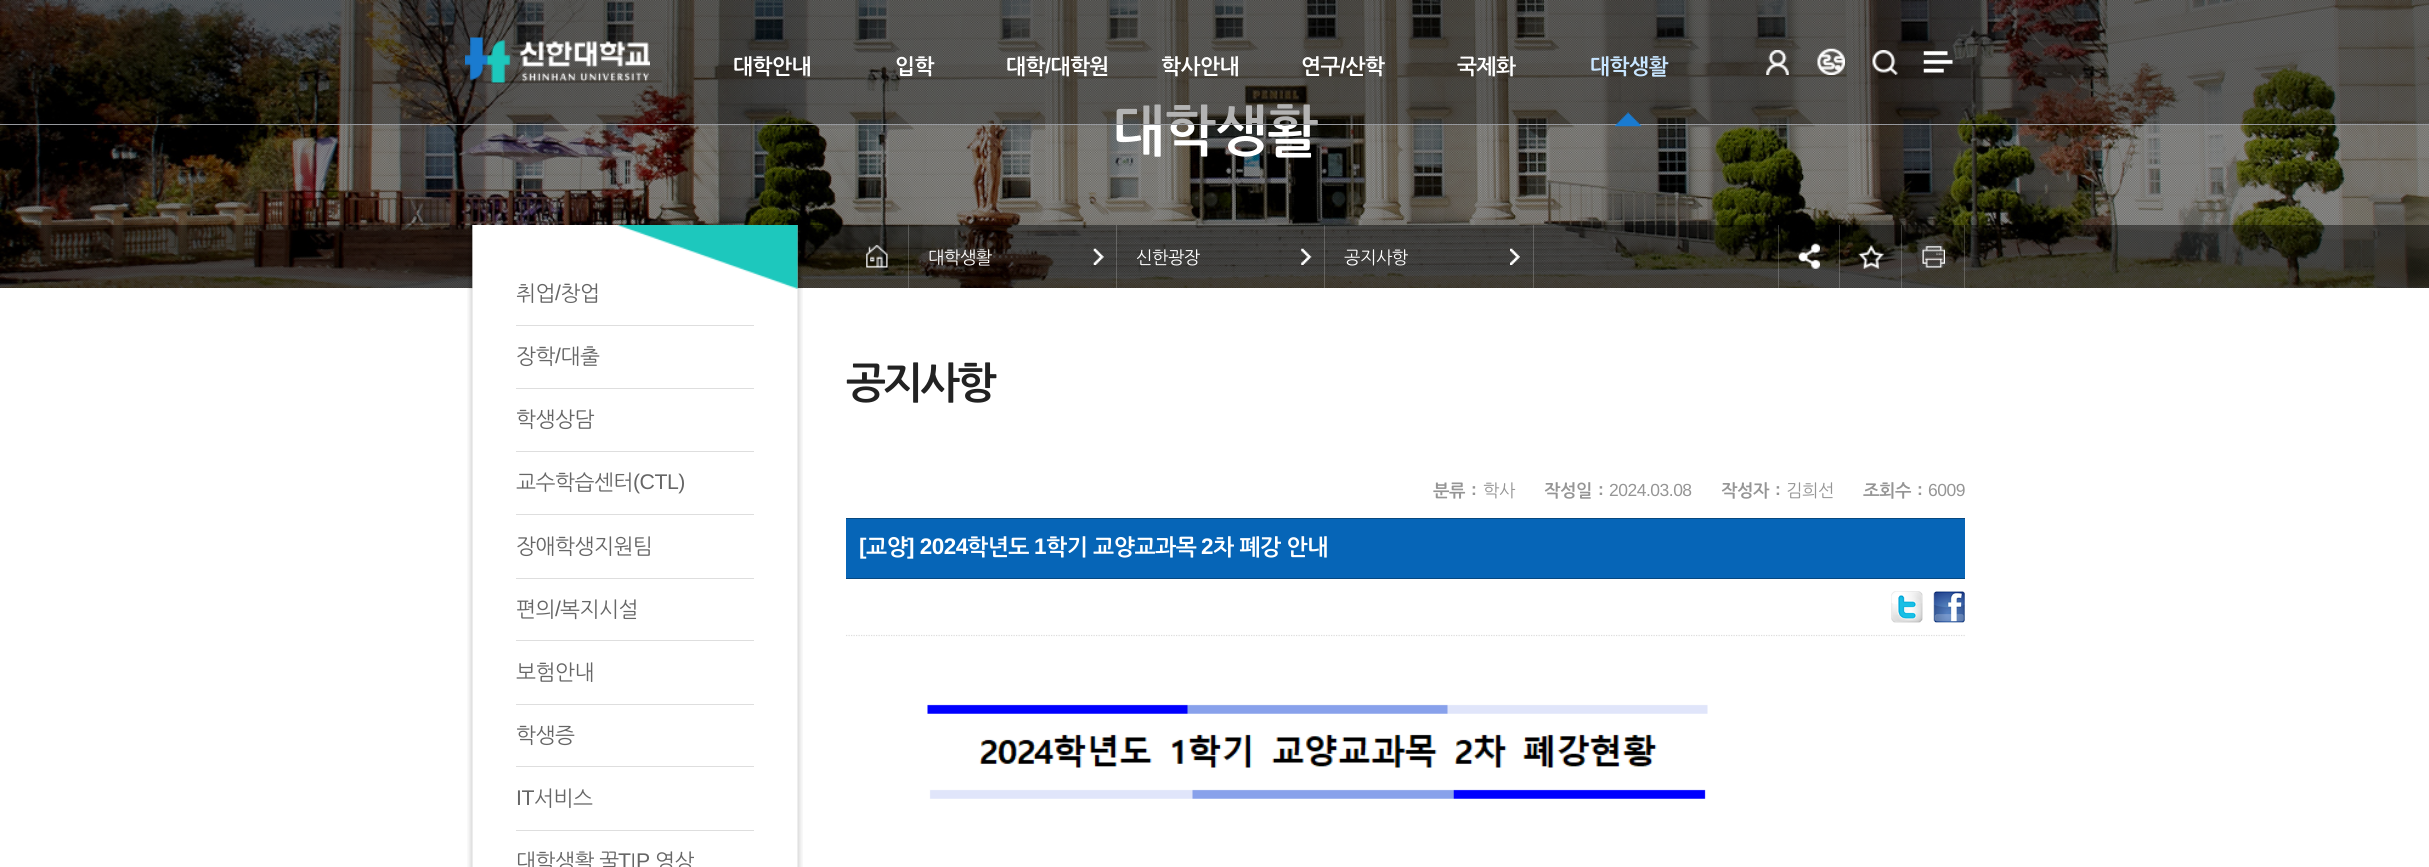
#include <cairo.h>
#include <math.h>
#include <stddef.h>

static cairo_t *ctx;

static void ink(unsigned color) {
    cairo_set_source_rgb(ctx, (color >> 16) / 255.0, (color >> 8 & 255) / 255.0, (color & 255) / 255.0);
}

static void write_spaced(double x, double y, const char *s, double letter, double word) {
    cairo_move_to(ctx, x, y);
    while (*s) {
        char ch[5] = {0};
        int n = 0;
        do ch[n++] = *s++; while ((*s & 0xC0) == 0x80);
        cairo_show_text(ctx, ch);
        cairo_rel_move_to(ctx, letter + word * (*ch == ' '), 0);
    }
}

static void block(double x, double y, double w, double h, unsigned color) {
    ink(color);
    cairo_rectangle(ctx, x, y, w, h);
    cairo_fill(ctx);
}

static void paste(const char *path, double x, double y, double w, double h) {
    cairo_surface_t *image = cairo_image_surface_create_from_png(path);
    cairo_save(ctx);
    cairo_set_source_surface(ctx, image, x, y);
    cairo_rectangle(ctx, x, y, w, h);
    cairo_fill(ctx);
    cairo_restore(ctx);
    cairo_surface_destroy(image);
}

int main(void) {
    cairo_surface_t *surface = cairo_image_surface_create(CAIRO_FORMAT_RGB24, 2429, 867);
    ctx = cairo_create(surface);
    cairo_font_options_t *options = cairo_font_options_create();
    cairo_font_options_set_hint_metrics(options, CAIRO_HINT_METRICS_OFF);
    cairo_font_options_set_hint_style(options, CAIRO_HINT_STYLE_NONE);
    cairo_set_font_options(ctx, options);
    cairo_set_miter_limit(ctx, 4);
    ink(0xffffff);
    cairo_paint(ctx);
    paste("pic1.png", 0, 0, 2429, 288);
    cairo_select_font_face(ctx, "NanumGothic", CAIRO_FONT_SLANT_NORMAL, CAIRO_FONT_WEIGHT_BOLD);
    cairo_set_font_size(ctx, 55);
    ink(0xffffff);
    write_spaced(1113, 148, "대학생활", -0.5, 0);
    cairo_set_source_rgba(ctx, 0, 0, 0, 0.3);
    cairo_rectangle(ctx, 0, 0, 2429, 124);
    cairo_fill(ctx);
    block(0, 124, 2429, 1, 0x97999e);
    paste("pic2.png", 465, 37, 185, 46);
    cairo_set_font_size(ctx, 21.25);
    ink(0xffffff);
    write_spaced(733, 73, "대학안내", -0.5, 0);
    write_spaced(895, 73, "입학", -0.5, 0);
    write_spaced(1006, 73, "대학 대학원", -0.5, 0);
    cairo_select_font_face(ctx, "Liberation Sans", CAIRO_FONT_SLANT_NORMAL, CAIRO_FONT_WEIGHT_BOLD);
    write_spaced(1045, 73, "/", -0.5, 0);
    cairo_select_font_face(ctx, "NanumGothic", CAIRO_FONT_SLANT_NORMAL, CAIRO_FONT_WEIGHT_BOLD);
    write_spaced(1161, 73, "학사안내", -0.5, 0);
    write_spaced(1301, 73, "연구 산학", -0.5, 0);
    cairo_select_font_face(ctx, "Liberation Sans", CAIRO_FONT_SLANT_NORMAL, CAIRO_FONT_WEIGHT_BOLD);
    write_spaced(1340, 73, "/", -0.5, 0);
    cairo_select_font_face(ctx, "NanumGothic", CAIRO_FONT_SLANT_NORMAL, CAIRO_FONT_WEIGHT_BOLD);
    write_spaced(1457, 73, "국제화", -0.5, 0);
    ink(0xc7e5ff);
    write_spaced(1590, 73, "대학생활", -0.5, 0);
    paste("pic3.png", 1615, 112, 27, 15);
    paste("pic4.png", 1766, 50, 23, 25);
    paste("pic5.png", 1817, 48, 28, 27);
    paste("pic6.png", 1872, 50, 26, 25);
    paste("pic7.png", 1923, 51, 30, 22);
    cairo_set_source_rgba(ctx, 0, 0, 0, 0.45);
    cairo_rectangle(ctx, 0, 225, 2429, 63);
    cairo_fill(ctx);
    paste("pic8.png", 467, 225, 336, 642);
    paste("pic9.png", 468, 225, 335, 64);
    block(516, 325, 238, 1, 0xdedede);
    cairo_select_font_face(ctx, "NanumGothic", CAIRO_FONT_SLANT_NORMAL, CAIRO_FONT_WEIGHT_NORMAL);
    ink(0x666666);
    write_spaced(516, 300, "취업 창업", -0.5, 0);
    cairo_select_font_face(ctx, "Liberation Sans", CAIRO_FONT_SLANT_NORMAL, CAIRO_FONT_WEIGHT_NORMAL);
    write_spaced(555, 300, "/", -0.5, 0);
    block(516, 388, 238, 1, 0xdedede);
    cairo_select_font_face(ctx, "NanumGothic", CAIRO_FONT_SLANT_NORMAL, CAIRO_FONT_WEIGHT_NORMAL);
    ink(0x666666);
    write_spaced(516, 363, "장학 대출", -0.5, 0);
    cairo_select_font_face(ctx, "Liberation Sans", CAIRO_FONT_SLANT_NORMAL, CAIRO_FONT_WEIGHT_NORMAL);
    write_spaced(555, 363, "/", -0.5, 0);
    block(516, 451, 238, 1, 0xdedede);
    cairo_select_font_face(ctx, "NanumGothic", CAIRO_FONT_SLANT_NORMAL, CAIRO_FONT_WEIGHT_NORMAL);
    ink(0x666666);
    write_spaced(516, 426, "학생상담", -0.5, 0);
    block(516, 514, 238, 1, 0xdedede);
    ink(0x666666);
    write_spaced(516, 489, "교수학습센터", -0.5, 0);
    cairo_select_font_face(ctx, "Liberation Sans", CAIRO_FONT_SLANT_NORMAL, CAIRO_FONT_WEIGHT_NORMAL);
    write_spaced(633, 489, "(CTL)", -0.5, 0);
    block(516, 578, 238, 1, 0xdedede);
    cairo_select_font_face(ctx, "NanumGothic", CAIRO_FONT_SLANT_NORMAL, CAIRO_FONT_WEIGHT_NORMAL);
    ink(0x666666);
    write_spaced(516, 553, "장애학생지원팀", -0.5, 0);
    block(516, 640, 238, 1, 0xdedede);
    ink(0x666666);
    write_spaced(516, 616, "편의", -0.5, 0);
    cairo_select_font_face(ctx, "Liberation Sans", CAIRO_FONT_SLANT_NORMAL, CAIRO_FONT_WEIGHT_NORMAL);
    write_spaced(555, 616, "/", -0.5, 0);
    cairo_select_font_face(ctx, "NanumGothic", CAIRO_FONT_SLANT_NORMAL, CAIRO_FONT_WEIGHT_NORMAL);
    write_spaced(560, 616, "복지시설", -0.5, 0);
    block(516, 704, 238, 1, 0xdedede);
    ink(0x666666);
    write_spaced(516, 679, "보험안내", -0.5, 0);
    block(516, 766, 238, 1, 0xdedede);
    ink(0x666666);
    write_spaced(516, 742, "학생증", -0.5, 0);
    block(516, 830, 238, 1, 0xdedede);
    cairo_select_font_face(ctx, "Liberation Sans", CAIRO_FONT_SLANT_NORMAL, CAIRO_FONT_WEIGHT_NORMAL);
    ink(0x666666);
    write_spaced(516, 805, "IT", -0.5, 0);
    cairo_select_font_face(ctx, "NanumGothic", CAIRO_FONT_SLANT_NORMAL, CAIRO_FONT_WEIGHT_NORMAL);
    write_spaced(534, 805, "서비스", -0.5, 0);
    write_spaced(516, 868, "대학생활 꿀", -0.5, 0);
    cairo_select_font_face(ctx, "Liberation Sans", CAIRO_FONT_SLANT_NORMAL, CAIRO_FONT_WEIGHT_NORMAL);
    write_spaced(618, 868, "TIP", -0.5, 0);
    cairo_select_font_face(ctx, "NanumGothic", CAIRO_FONT_SLANT_NORMAL, CAIRO_FONT_WEIGHT_NORMAL);
    write_spaced(655, 868, "영상", -0.5, 0);
    paste("pic10.png", 866, 245, 22, 23);
    cairo_set_source_rgba(ctx, 1, 1, 1, 0.2);
    cairo_rectangle(ctx, 908, 225, 1, 63);
    cairo_fill(ctx);
    cairo_rectangle(ctx, 1116, 225, 1, 63);
    cairo_fill(ctx);
    cairo_set_font_size(ctx, 17.5);
    ink(0xffffff);
    write_spaced(928, 263, "대학생활", -0.5, 0);
    paste("pic11.png", 1093, 248, 11, 17);
    cairo_set_source_rgba(ctx, 1, 1, 1, 0.2);
    cairo_rectangle(ctx, 1324, 225, 1, 63);
    cairo_fill(ctx);
    ink(0xffffff);
    write_spaced(1136, 263, "신한광장", -0.5, 0);
    paste("pic12.png", 1301, 248, 11, 17);
    cairo_set_source_rgba(ctx, 1, 1, 1, 0.2);
    cairo_rectangle(ctx, 1533, 225, 1, 63);
    cairo_fill(ctx);
    ink(0xffffff);
    write_spaced(1344, 263, "공지사항", -0.5, 0);
    paste("pic13.png", 1510, 248, 10, 17);
    paste("pic14.png", 1798, 243, 22, 26);
    cairo_set_source_rgba(ctx, 1, 1, 1, 0.2);
    cairo_rectangle(ctx, 1839, 225, 1, 63);
    cairo_fill(ctx);
    cairo_rectangle(ctx, 1778, 225, 1, 63);
    cairo_fill(ctx);
    paste("pic15.png", 1858, 245, 26, 24);
    cairo_rectangle(ctx, 1901, 225, 1, 63);
    cairo_fill(ctx);
    paste("pic16.png", 1922, 246, 23, 22);
    cairo_rectangle(ctx, 1964, 225, 1, 63);
    cairo_fill(ctx);
    cairo_select_font_face(ctx, "NanumGothic", CAIRO_FONT_SLANT_NORMAL, CAIRO_FONT_WEIGHT_BOLD);
    cairo_set_font_size(ctx, 42.5);
    ink(0x222222);
    write_spaced(846, 396, "공지사항", -3, 0);
    cairo_set_font_size(ctx, 17.5);
    ink(0x959595);
    write_spaced(1433, 496, "분류", -0.5, 0);
    cairo_select_font_face(ctx, "Liberation Sans", CAIRO_FONT_SLANT_NORMAL, CAIRO_FONT_WEIGHT_BOLD);
    write_spaced(1471, 495, ":", -0.5, 0);
    cairo_select_font_face(ctx, "NanumGothic", CAIRO_FONT_SLANT_NORMAL, CAIRO_FONT_WEIGHT_NORMAL);
    write_spaced(1483, 496, "학사", -0.5, 0);
    cairo_select_font_face(ctx, "NanumGothic", CAIRO_FONT_SLANT_NORMAL, CAIRO_FONT_WEIGHT_BOLD);
    write_spaced(1544, 496, "작성일", -0.5, 0);
    cairo_select_font_face(ctx, "Liberation Sans", CAIRO_FONT_SLANT_NORMAL, CAIRO_FONT_WEIGHT_BOLD);
    write_spaced(1598, 495, ":", -0.5, 0);
    cairo_select_font_face(ctx, "Liberation Sans", CAIRO_FONT_SLANT_NORMAL, CAIRO_FONT_WEIGHT_NORMAL);
    write_spaced(1609, 496, "2024.03.08", -0.5, 0);
    cairo_select_font_face(ctx, "NanumGothic", CAIRO_FONT_SLANT_NORMAL, CAIRO_FONT_WEIGHT_BOLD);
    write_spaced(1721, 496, "작성자", -0.5, 0);
    cairo_select_font_face(ctx, "Liberation Sans", CAIRO_FONT_SLANT_NORMAL, CAIRO_FONT_WEIGHT_BOLD);
    write_spaced(1775, 495, ":", -0.5, 0);
    cairo_select_font_face(ctx, "NanumGothic", CAIRO_FONT_SLANT_NORMAL, CAIRO_FONT_WEIGHT_NORMAL);
    write_spaced(1786, 496, "김희선", -0.5, 0);
    cairo_select_font_face(ctx, "NanumGothic", CAIRO_FONT_SLANT_NORMAL, CAIRO_FONT_WEIGHT_BOLD);
    write_spaced(1863, 496, "조회수", -0.5, 0);
    cairo_select_font_face(ctx, "Liberation Sans", CAIRO_FONT_SLANT_NORMAL, CAIRO_FONT_WEIGHT_BOLD);
    write_spaced(1917, 495, ":", -0.5, 0);
    cairo_select_font_face(ctx, "Liberation Sans", CAIRO_FONT_SLANT_NORMAL, CAIRO_FONT_WEIGHT_NORMAL);
    write_spaced(1928, 496, "6009", -0.5, 0);
    block(846, 519, 1119, 59, 0x0665b7);
    block(846, 518, 1119, 1, 0x074880);
    block(846, 578, 1119, 1, 0x074880);
    cairo_select_font_face(ctx, "Liberation Sans", CAIRO_FONT_SLANT_NORMAL, CAIRO_FONT_WEIGHT_BOLD);
    cairo_set_font_size(ctx, 22.5);
    ink(0xffffff);
    write_spaced(859, 554, "[", -0.5, 0);
    cairo_select_font_face(ctx, "NanumGothic", CAIRO_FONT_SLANT_NORMAL, CAIRO_FONT_WEIGHT_BOLD);
    write_spaced(866, 554, "교양", -0.5, 0);
    cairo_select_font_face(ctx, "Liberation Sans", CAIRO_FONT_SLANT_NORMAL, CAIRO_FONT_WEIGHT_BOLD);
    write_spaced(907, 554, "] 2024", -0.5, 0);
    cairo_select_font_face(ctx, "NanumGothic", CAIRO_FONT_SLANT_NORMAL, CAIRO_FONT_WEIGHT_BOLD);
    write_spaced(967, 554, "학년도", -0.5, 0);
    cairo_select_font_face(ctx, "Liberation Sans", CAIRO_FONT_SLANT_NORMAL, CAIRO_FONT_WEIGHT_BOLD);
    write_spaced(1034, 554, "1", -0.5, 0);
    cairo_select_font_face(ctx, "NanumGothic", CAIRO_FONT_SLANT_NORMAL, CAIRO_FONT_WEIGHT_BOLD);
    write_spaced(1046, 554, "학기 교양교과목", -0.5, 0);
    cairo_select_font_face(ctx, "Liberation Sans", CAIRO_FONT_SLANT_NORMAL, CAIRO_FONT_WEIGHT_BOLD);
    write_spaced(1201, 554, "2", -0.5, 0);
    cairo_select_font_face(ctx, "NanumGothic", CAIRO_FONT_SLANT_NORMAL, CAIRO_FONT_WEIGHT_BOLD);
    write_spaced(1213, 554, "차 폐강 안내", -0.5, 0);
    cairo_new_path(ctx);
    cairo_move_to(ctx, 846, 635.5);
    cairo_line_to(ctx, 1965, 635.5);
    ink(0xdddddd);
    cairo_set_line_width(ctx, 1.2);
    cairo_set_dash(ctx, (double[]){1.25, 1.25}, 2, 0);
    cairo_stroke(ctx);
    paste("pic17.png", 1891, 591, 32, 32);
    paste("pic18.png", 1933, 591, 32, 32);
    paste("pic19.png", 927, 704, 781, 95);
    cairo_surface_write_to_png(surface, "screenshot.png");
    cairo_font_options_destroy(options);
    cairo_destroy(ctx);
    cairo_surface_destroy(surface);
    return 0;
}
